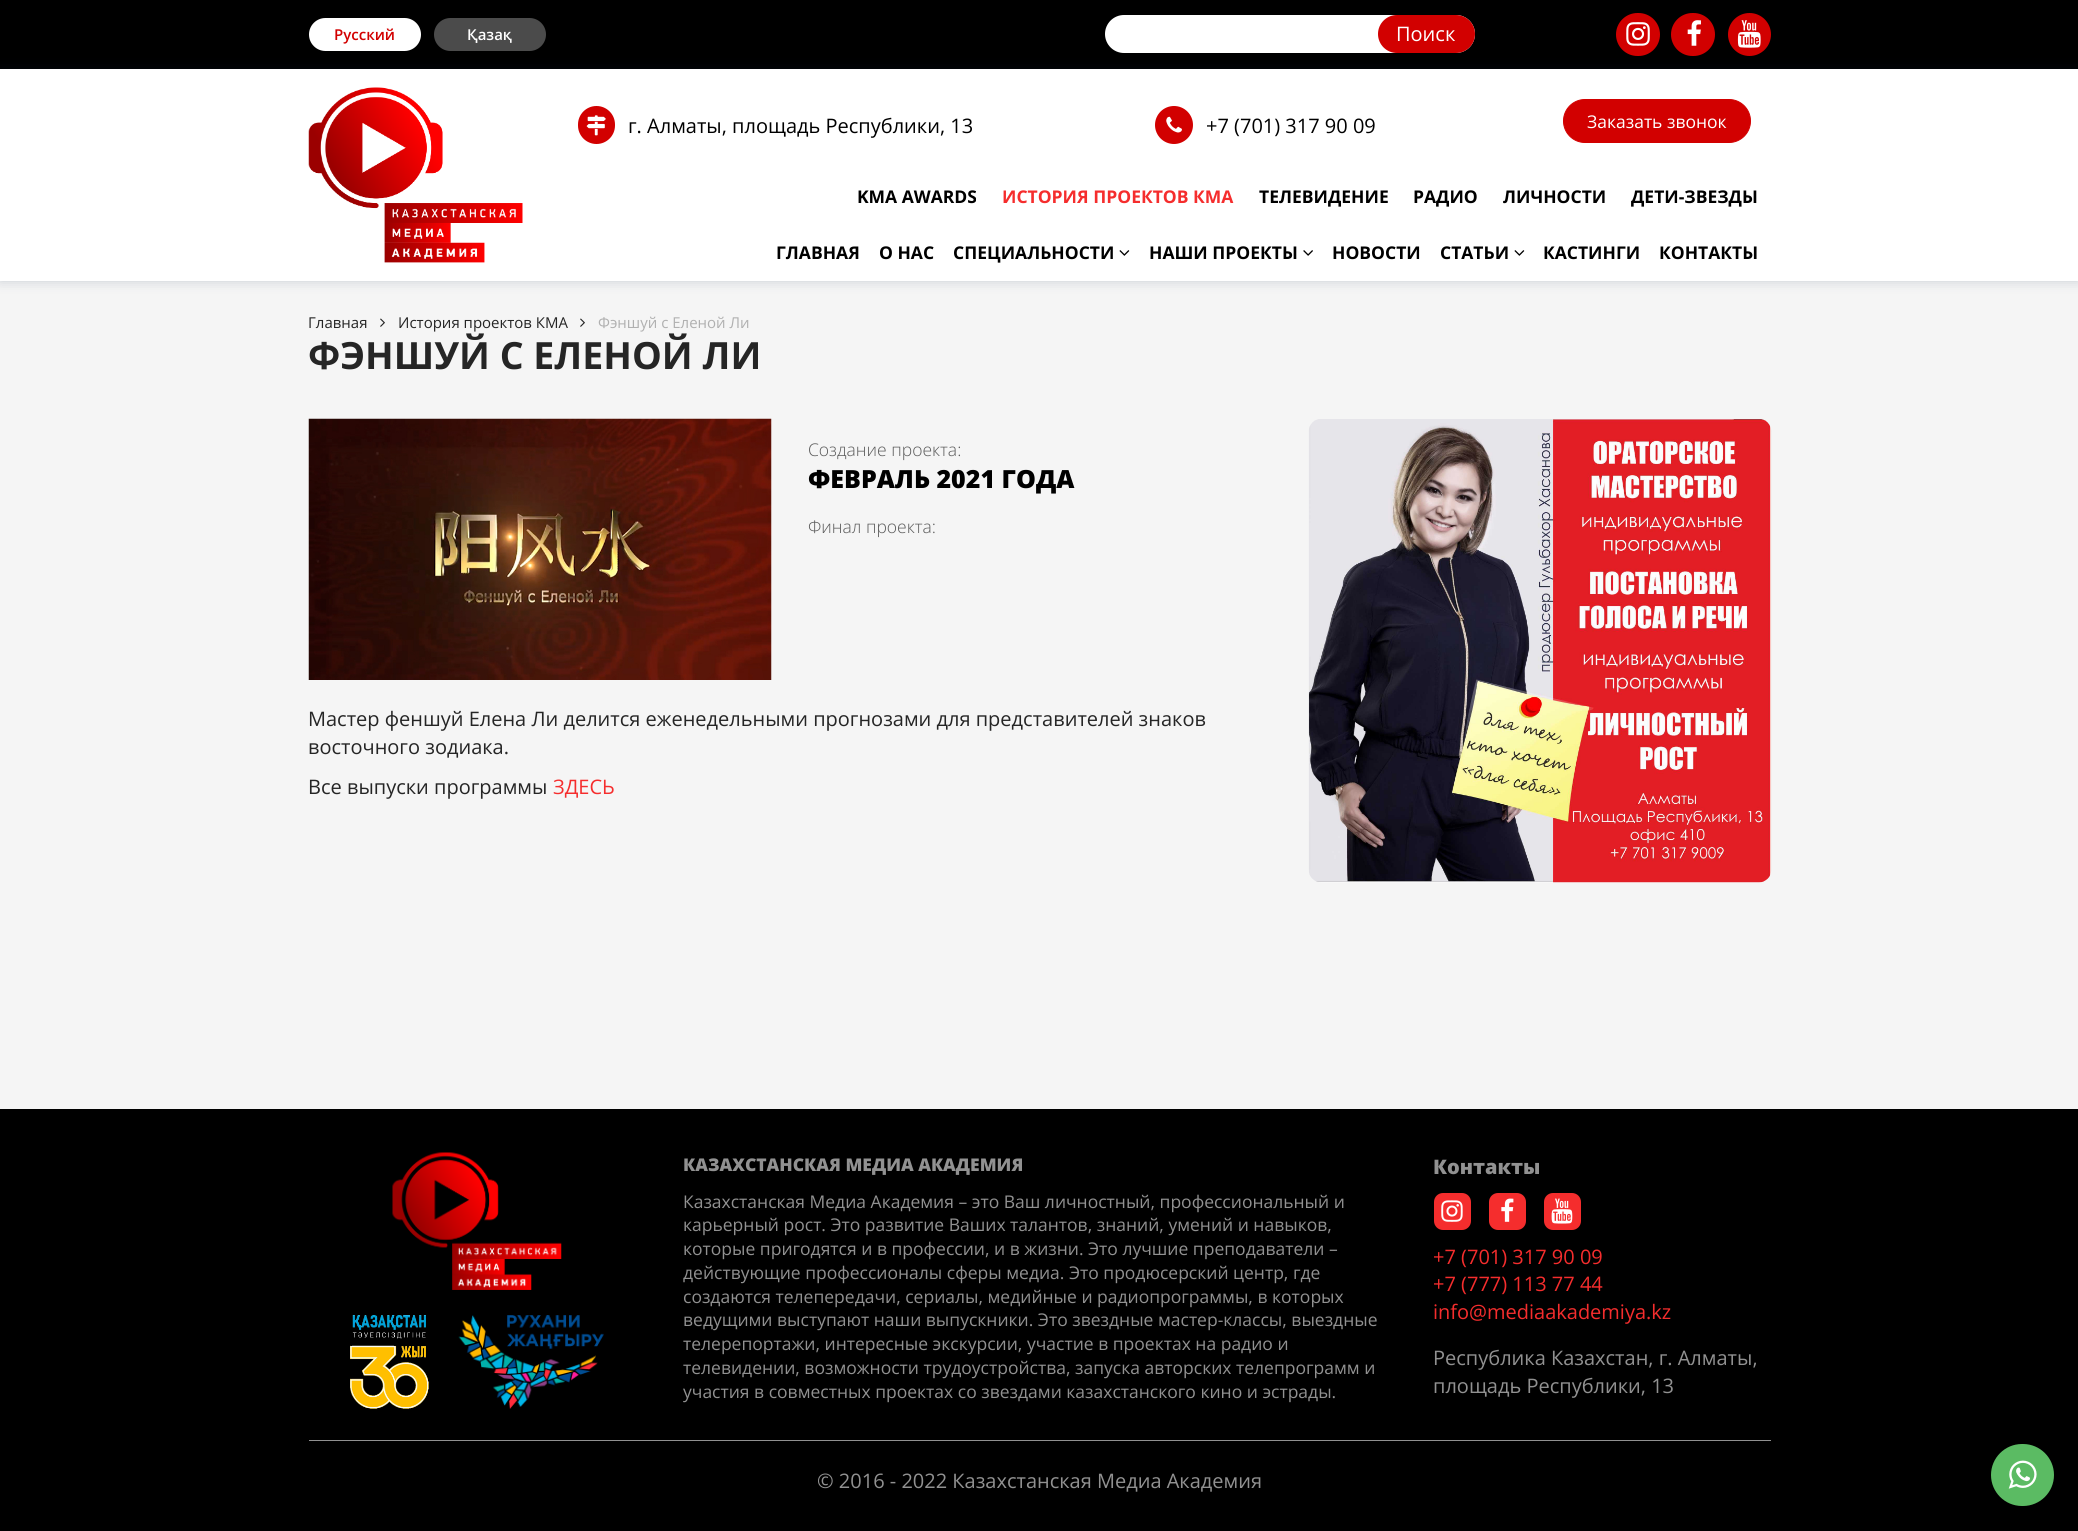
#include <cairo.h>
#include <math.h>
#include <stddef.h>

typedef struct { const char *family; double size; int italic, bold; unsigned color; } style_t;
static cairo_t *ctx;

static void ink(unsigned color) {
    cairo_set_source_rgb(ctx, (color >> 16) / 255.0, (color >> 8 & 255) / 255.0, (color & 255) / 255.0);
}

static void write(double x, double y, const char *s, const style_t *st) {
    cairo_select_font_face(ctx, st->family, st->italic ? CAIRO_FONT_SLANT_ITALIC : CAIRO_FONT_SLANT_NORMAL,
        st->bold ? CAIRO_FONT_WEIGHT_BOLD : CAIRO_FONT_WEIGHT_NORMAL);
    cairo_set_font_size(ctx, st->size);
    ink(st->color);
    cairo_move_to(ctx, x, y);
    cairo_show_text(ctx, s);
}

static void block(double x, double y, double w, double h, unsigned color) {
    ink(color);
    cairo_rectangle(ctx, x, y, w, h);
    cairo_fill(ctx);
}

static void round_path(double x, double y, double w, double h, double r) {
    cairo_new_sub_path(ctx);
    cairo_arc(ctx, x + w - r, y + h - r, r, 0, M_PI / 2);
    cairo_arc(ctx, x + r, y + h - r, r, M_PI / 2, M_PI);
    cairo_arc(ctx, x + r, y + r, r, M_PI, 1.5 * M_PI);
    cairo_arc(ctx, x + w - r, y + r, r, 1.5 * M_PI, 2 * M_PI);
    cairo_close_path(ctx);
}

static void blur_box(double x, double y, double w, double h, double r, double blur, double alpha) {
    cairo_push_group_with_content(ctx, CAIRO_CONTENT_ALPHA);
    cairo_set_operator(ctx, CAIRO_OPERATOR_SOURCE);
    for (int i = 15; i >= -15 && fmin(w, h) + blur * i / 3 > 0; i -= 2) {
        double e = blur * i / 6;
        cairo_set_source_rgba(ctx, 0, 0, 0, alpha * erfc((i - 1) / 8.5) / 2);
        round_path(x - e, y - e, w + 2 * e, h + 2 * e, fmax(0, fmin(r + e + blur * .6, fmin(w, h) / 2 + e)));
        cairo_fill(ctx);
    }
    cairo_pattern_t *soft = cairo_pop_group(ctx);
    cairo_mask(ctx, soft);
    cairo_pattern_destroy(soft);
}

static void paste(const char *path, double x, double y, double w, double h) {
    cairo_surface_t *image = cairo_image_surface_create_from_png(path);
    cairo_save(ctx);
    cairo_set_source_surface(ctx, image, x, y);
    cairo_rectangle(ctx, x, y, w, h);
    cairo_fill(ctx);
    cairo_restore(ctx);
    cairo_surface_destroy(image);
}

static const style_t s1 = {"Open Sans SemiBold", 15, 0, 0, 0xd20000};
static const style_t s2 = {"Open Sans SemiBold", 15, 0, 0, 0xffffff};
static const style_t s3 = {"Open Sans", 20, 0, 0, 0xffffff};
static const style_t s4 = {"Open Sans", 20, 0, 0, 0x000000};
static const style_t s5 = {"Open Sans", 17.5, 0, 0, 0xffffff};
static const style_t s6 = {"Open Sans", 17.5, 0, 1, 0x000000};
static const style_t s7 = {"Open Sans", 17.5, 0, 1, 0xf52d2d};
static const style_t s8 = {"Open Sans", 15, 0, 0, 0x252525};
static const style_t s9 = {"Open Sans", 15, 0, 0, 0xb0b0b0};
static const style_t s10 = {"Open Sans", 37.5, 0, 1, 0x252525};
static const style_t s11 = {"Open Sans Light", 17.5, 0, 0, 0x5a5a5a};
static const style_t s12 = {"Open Sans ExtraBold", 25, 0, 0, 0x000000};
static const style_t s13 = {"Open Sans", 20, 0, 0, 0x252525};
static const style_t s14 = {"Open Sans", 20, 0, 0, 0xf52d2d};
static const style_t s15 = {"Open Sans ExtraBold", 17.5, 0, 0, 0x919191};
static const style_t s16 = {"Open Sans", 17.5, 0, 0, 0x919191};
static const style_t s17 = {"Open Sans ExtraBold", 20, 0, 0, 0x919191};
static const style_t s18 = {"Open Sans", 20, 0, 0, 0x919191};

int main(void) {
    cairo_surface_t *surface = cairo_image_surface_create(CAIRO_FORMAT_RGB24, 2078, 1531);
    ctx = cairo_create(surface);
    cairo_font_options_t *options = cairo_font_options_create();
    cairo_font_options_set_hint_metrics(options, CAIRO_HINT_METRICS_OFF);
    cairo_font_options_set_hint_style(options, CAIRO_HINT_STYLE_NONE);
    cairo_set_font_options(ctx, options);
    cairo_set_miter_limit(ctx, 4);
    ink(0xf5f5f5);
    cairo_paint(ctx);
    block(0, 0, 2078, 69, 0x000000);
    ink(0x0f2a4c);
    blur_box(0, 69, 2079, 212, 0, 6, 0.2);
    ink(0xffffff);
    round_path(309, 18, 112, 33, 16.5);
    cairo_fill(ctx);
    write(334, 40, "Русский", &s1);
    ink(0x4b4b4b);
    round_path(434, 18, 112, 33, 16.5);
    cairo_fill(ctx);
    write(467, 40, "Қазақ", &s2);
    round_path(1105, 15, 370, 38, 19);
    cairo_fill(ctx);
    ink(0xd20000);
    round_path(1378, 15, 97, 38, 19);
    cairo_fill(ctx);
    write(1396, 41, "Поиск", &s3);
    ink(0xd20000);
    round_path(1616, 13, 44, 43, 21.5);
    cairo_fill(ctx);
    paste("pic1.png", 1626, 22, 24, 24);
    round_path(1671, 13, 44, 43, 21.5);
    cairo_fill(ctx);
    paste("pic2.png", 1687, 20, 14, 26);
    cairo_arc(ctx, 1749.5, 34.5, 21.5, 0, 2 * M_PI);
    cairo_fill(ctx);
    paste("pic3.png", 1737, 20, 24, 28);
    block(0, 69, 2078, 212, 0xffffff);
    paste("pic4.png", 308, 87, 215, 176);
    ink(0xd20000);
    round_path(578, 106, 37, 38, 18.5);
    cairo_fill(ctx);
    paste("pic5.png", 586, 115, 20, 21);
    write(628, 133, "г. Алматы, площадь Республики, 13", &s4);
    ink(0xd20000);
    cairo_new_path(ctx);
    cairo_arc(ctx, 1174, 125, 19, 0, 2 * M_PI);
    cairo_fill(ctx);
    paste("pic6.png", 1166, 116, 16, 17);
    write(1206, 133, "+7 (701) 317 90 09", &s4);
    ink(0xd20000);
    round_path(1563.5, 99.5, 187, 43, 21.5);
    cairo_fill_preserve(ctx);
    cairo_set_line_width(ctx, 1);
    cairo_stroke(ctx);
    write(1587, 128, "Заказать звонок", &s5);
    write(857, 203, "KMA AWARDS", &s6);
    write(1002, 203, "ИСТОРИЯ ПРОЕКТОВ КМА", &s7);
    write(1259, 203, "ТЕЛЕВИДЕНИЕ", &s6);
    write(1413, 203, "РАДИО", &s6);
    write(1503, 203, "ЛИЧНОСТИ", &s6);
    write(1631, 203, "ДЕТИ-ЗВЕЗДЫ", &s6);
    write(776, 259, "ГЛАВНАЯ", &s6);
    write(879, 259, "О НАС", &s6);
    write(953, 259, "СПЕЦИАЛЬНОСТИ", &s6);
    paste("pic7.png", 1119, 250, 11, 6);
    write(1149, 259, "НАШИ ПРОЕКТЫ", &s6);
    paste("pic8.png", 1303, 250, 10, 6);
    write(1332, 259, "НОВОСТИ", &s6);
    write(1440, 259, "СТАТЬИ", &s6);
    paste("pic7.png", 1514, 250, 11, 6);
    write(1543, 259, "КАСТИНГИ", &s6);
    write(1659, 259, "КОНТАКТЫ", &s6);
    write(308, 328, "Главная", &s8);
    paste("pic9.png", 380, 318, 5, 9);
    write(398, 328, "История проектов КМА", &s8);
    paste("pic9.png", 580, 318, 5, 9);
    write(598, 328, "Фэншуй с Еленой Ли", &s9);
    write(308, 369, "ФЭНШУЙ С ЕЛЕНОЙ ЛИ", &s10);
    paste("pic10.png", 308, 418, 464, 262);
    write(808, 456, "Создание проекта:", &s11);
    write(808, 488, "ФЕВРАЛЬ 2021 ГОДА", &s12);
    write(808, 533, "Финал проекта:", &s11);
    write(308, 726, "Мастер феншуй Елена Ли делится еженедельными прогнозами для представителей знаков", &s13);
    write(308, 754, "восточного зодиака.", &s13);
    write(308, 794, "Все выпуски программы", &s13);
    write(553, 794, "ЗДЕСЬ", &s14);
    paste("pic11.png", 1308, 419, 464, 464);
    block(0, 1109, 2078, 422, 0x000000);
    paste("pic12.png", 392, 1152, 170, 138);
    paste("pic13.png", 350, 1315, 79, 94);
    paste("pic14.png", 458, 1315, 146, 94);
    write(683, 1171, "КАЗАХСТАНСКАЯ МЕДИА АКАДЕМИЯ", &s15);
    write(683, 1208, "Казахстанская Медиа Академия – это Ваш личностный, профессиональный и", &s16);
    write(683, 1231, "карьерный рост. Это развитие Ваших талантов, знаний, умений и навыков,", &s16);
    write(683, 1255, "которые пригодятся и в профессии, и в жизни. Это лучшие преподаватели –", &s16);
    write(683, 1279, "действующие профессионалы сферы медиа. Это продюсерский центр, где", &s16);
    write(683, 1303, "создаются телепередачи, сериалы, медийные и радиопрограммы, в которых", &s16);
    write(683, 1326, "ведущими выступают наши выпускники. Это звездные мастер-классы, выездные", &s16);
    write(683, 1350, "телерепортажи, интересные экскурсии, участие в проектах на радио и", &s16);
    write(683, 1374, "телевидении, возможности трудоустройства, запуска авторских телепрограмм и", &s16);
    write(683, 1398, "участия в совместных проектах со звездами казахстанского кино и эстрады.", &s16);
    write(1433, 1174, "Контакты", &s17);
    ink(0xf52d2d);
    round_path(1434, 1193, 37, 37, 9);
    cairo_fill(ctx);
    paste("pic15.png", 1441, 1200, 22, 22);
    round_path(1489, 1193, 37, 37, 9);
    cairo_fill(ctx);
    paste("pic16.png", 1501, 1198, 13, 24);
    round_path(1544, 1193, 37, 37, 9);
    cairo_fill(ctx);
    paste("pic17.png", 1551, 1198, 22, 26);
    write(1433, 1264, "+7 (701) 317 90 09", &s14);
    write(1433, 1291, "+7 (777) 113 77 44", &s14);
    write(1433, 1319, "info@mediaakademiya.kz", &s14);
    write(1433, 1365, "Республика Казахстан, г. Алматы,", &s18);
    write(1433, 1393, "площадь Республики, 13", &s18);
    block(309, 1440, 1462, 1, 0x919191);
    write(817, 1488, "© 2016 - 2022 Казахстанская Медиа Академия", &s18);
    ink(0x5bbb63);
    round_path(1991, 1444, 63, 62, 31);
    cairo_fill(ctx);
    paste("pic18.png", 2008, 1460, 29, 29);
    cairo_surface_write_to_png(surface, "screenshot.png");
    cairo_font_options_destroy(options);
    cairo_destroy(ctx);
    cairo_surface_destroy(surface);
    return 0;
}
